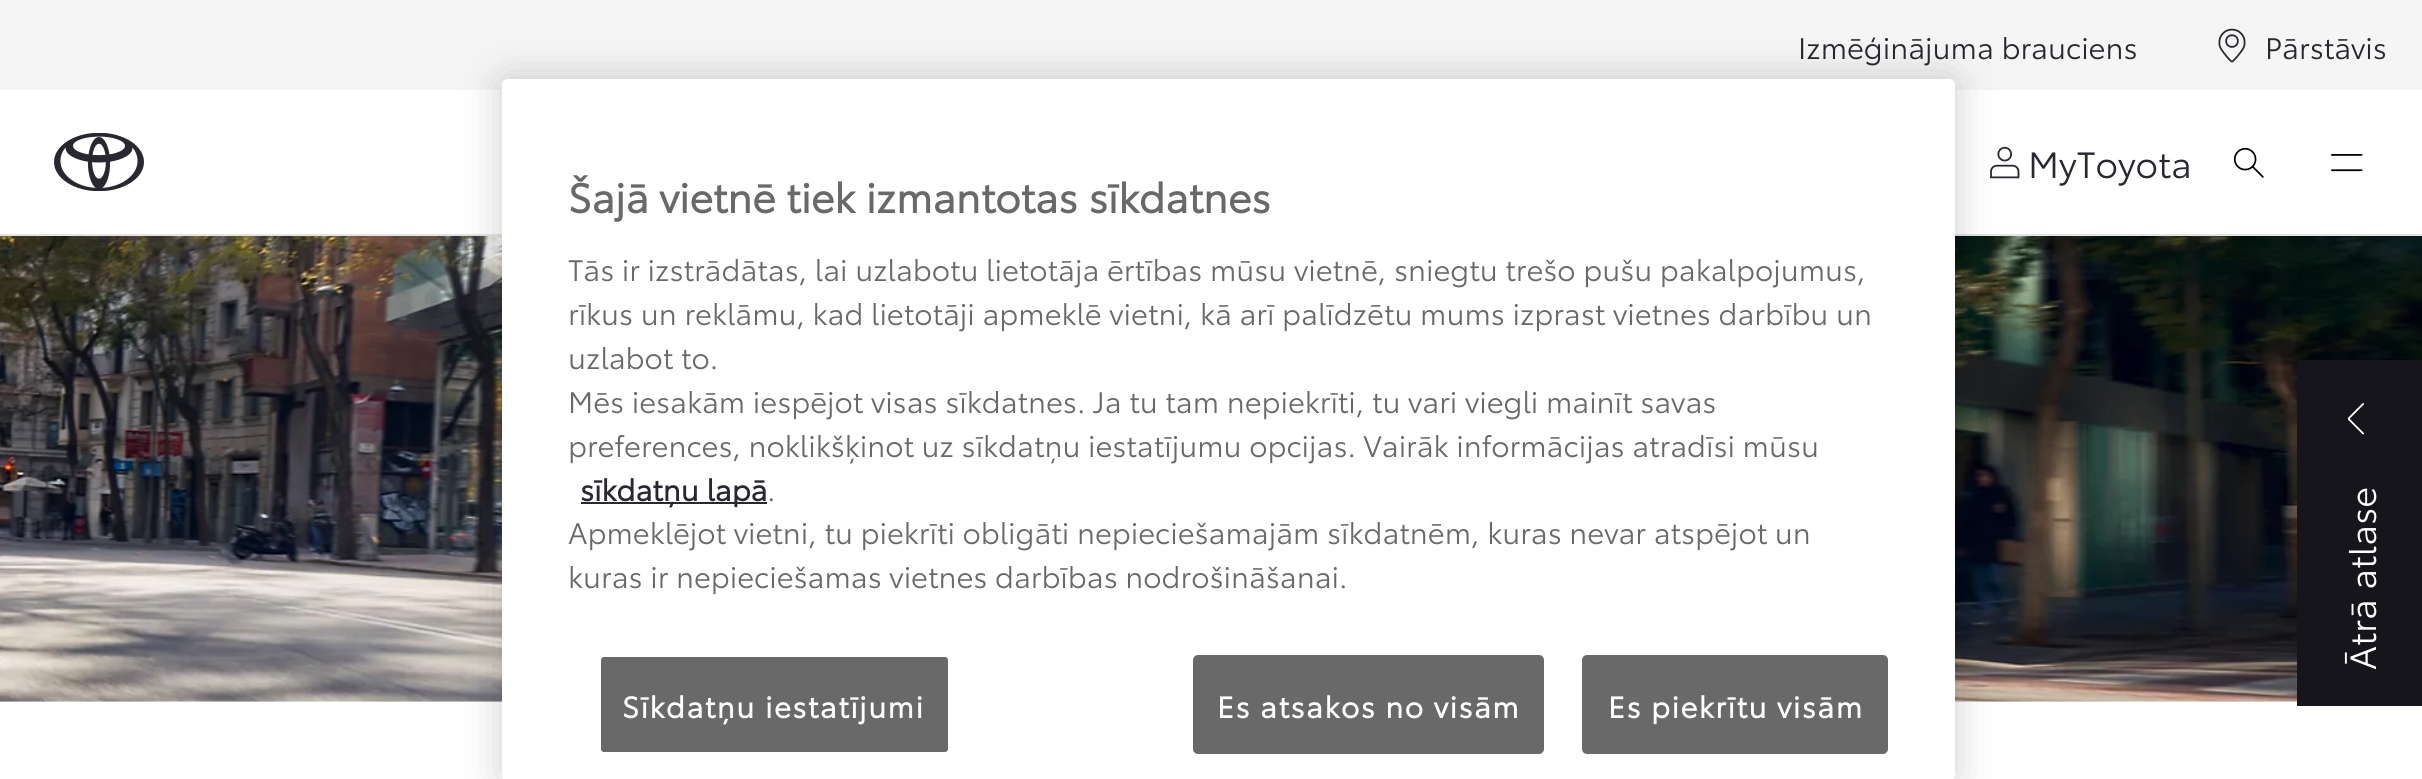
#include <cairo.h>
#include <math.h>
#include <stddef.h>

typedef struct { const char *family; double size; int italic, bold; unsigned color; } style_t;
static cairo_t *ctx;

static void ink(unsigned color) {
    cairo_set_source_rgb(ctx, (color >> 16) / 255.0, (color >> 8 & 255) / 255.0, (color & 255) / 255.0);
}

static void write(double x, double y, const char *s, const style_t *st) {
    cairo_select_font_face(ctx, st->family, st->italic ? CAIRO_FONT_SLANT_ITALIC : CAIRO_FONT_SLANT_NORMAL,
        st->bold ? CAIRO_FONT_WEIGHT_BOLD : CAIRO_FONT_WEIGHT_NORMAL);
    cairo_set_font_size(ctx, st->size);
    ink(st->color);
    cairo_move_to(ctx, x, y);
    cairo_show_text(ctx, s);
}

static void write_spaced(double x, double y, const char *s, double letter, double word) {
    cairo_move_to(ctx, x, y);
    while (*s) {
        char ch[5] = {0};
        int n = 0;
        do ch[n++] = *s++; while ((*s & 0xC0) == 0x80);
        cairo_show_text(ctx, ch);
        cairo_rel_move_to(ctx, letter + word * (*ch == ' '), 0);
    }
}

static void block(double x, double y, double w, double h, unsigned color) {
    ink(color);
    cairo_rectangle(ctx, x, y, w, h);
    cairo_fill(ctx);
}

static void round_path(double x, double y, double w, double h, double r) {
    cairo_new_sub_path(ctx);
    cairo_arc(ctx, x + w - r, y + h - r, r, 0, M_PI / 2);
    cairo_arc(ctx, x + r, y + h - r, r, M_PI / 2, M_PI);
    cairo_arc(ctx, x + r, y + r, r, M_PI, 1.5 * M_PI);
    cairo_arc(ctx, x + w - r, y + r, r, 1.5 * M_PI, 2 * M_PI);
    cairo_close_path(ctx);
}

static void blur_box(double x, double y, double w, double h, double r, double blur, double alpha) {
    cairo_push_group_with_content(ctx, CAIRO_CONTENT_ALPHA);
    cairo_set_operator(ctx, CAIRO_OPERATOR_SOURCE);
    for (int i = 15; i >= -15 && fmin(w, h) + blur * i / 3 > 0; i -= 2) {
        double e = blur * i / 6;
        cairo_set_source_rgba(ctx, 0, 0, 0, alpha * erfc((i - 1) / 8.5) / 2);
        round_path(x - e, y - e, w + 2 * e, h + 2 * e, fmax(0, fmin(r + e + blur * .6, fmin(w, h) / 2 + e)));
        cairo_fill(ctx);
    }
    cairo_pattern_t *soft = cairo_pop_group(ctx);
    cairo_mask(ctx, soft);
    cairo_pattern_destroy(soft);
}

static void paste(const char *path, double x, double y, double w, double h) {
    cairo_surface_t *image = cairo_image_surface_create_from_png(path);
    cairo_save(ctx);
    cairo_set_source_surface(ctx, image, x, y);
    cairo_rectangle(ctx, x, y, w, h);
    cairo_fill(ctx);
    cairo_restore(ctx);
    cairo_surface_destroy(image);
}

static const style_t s1 = {"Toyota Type", 29.25, 0, 0, 0x282830};
static const style_t s2 = {"Toyota Type", 36, 0, 0, 0x282830};
static const style_t s3 = {"Toyota Type", 40.5, 0, 1, 0x696969};
static const style_t s4 = {"Toyota Type", 29.25, 0, 0, 0x696969};
static const style_t s5 = {"Toyota Type", 29.25, 0, 1, 0x282830};
static const style_t s6 = {"Toyota Type", 36, 0, 0, 0xffffff};

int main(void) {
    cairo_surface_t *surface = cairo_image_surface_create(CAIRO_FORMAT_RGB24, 2422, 779);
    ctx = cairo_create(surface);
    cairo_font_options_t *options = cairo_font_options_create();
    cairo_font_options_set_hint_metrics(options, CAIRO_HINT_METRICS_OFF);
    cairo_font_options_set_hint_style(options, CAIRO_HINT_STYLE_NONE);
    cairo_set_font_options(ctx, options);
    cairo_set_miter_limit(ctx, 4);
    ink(0xffffff);
    cairo_paint(ctx);
    block(0, 0, 2422, 90, 0xf5f5f5);
    write(1798, 59, "Izmēģinājuma brauciens", &s1);
    paste("pic1.png", 2218, 28, 28, 35);
    write(2265, 59, "Pārstāvis", &s1);
    paste("pic2.png", 54, 133, 90, 58);
    paste("pic3.png", 1990, 146, 30, 33);
    write(2028, 178, "MyToyota", &s2);
    paste("pic4.png", 2233, 147, 31, 31);
    paste("pic5.png", 2331, 154, 32, 18);
    block(0, 234, 2422, 2, 0xe4e4e4);
    paste("pic6.png", 0, 236, 2422, 466);
    ink(0x000000);
    blur_box(502, 79, 1453, 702, 6, 20, 0.2);
    ink(0xffffff);
    round_path(502, 79, 1453, 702, 6);
    cairo_fill(ctx);
    write(568, 213, "Šajā vietnē tiek izmantotas sīkdatnes", &s3);
    write(568, 281, "Tās ir izstrādātas, lai uzlabotu lietotāja ērtības mūsu vietnē, sniegtu trešo pušu pakalpojumus,", &s4);
    write(568, 325, "rīkus un reklāmu, kad lietotāji apmeklē vietni, kā arī palīdzētu mums izprast vietnes darbību un", &s4);
    write(568, 369, "uzlabot to.", &s4);
    write(568, 413, "Mēs iesakām iespējot visas sīkdatnes. Ja tu tam nepiekrīti, tu vari viegli mainīt savas", &s4);
    write(568, 457, "preferences, noklikšķinot uz sīkdatņu iestatījumu opcijas. Vairāk informācijas atradīsi mūsu", &s4);
    block(581, 502, 186, 2, 0x282830);
    write(580, 501, "sīkdatņu lapā", &s5);
    write(767, 501, ".", &s4);
    write(568, 544, "Apmeklējot vietni, tu piekrīti obligāti nepieciešamajām sīkdatnēm, kuras nevar atspējot un", &s4);
    write(568, 588, "kuras ir nepieciešamas vietnes darbības nodrošināšanai.", &s4);
    round_path(600, 656, 349, 97, 4);
    cairo_fill_preserve(ctx);
    ink(0xffffff);
    cairo_stroke(ctx);
    cairo_select_font_face(ctx, "Toyota Type", CAIRO_FONT_SLANT_NORMAL, CAIRO_FONT_WEIGHT_BOLD);
    write_spaced(622, 718, "Sīkdatņu iestatījumi", 1.5, 0);
    ink(0x696969);
    round_path(1194, 656, 349, 97, 4);
    cairo_fill_preserve(ctx);
    cairo_stroke(ctx);
    ink(0xffffff);
    write_spaced(1217, 718, "Es atsakos no visām", 1.5, 0);
    ink(0x696969);
    round_path(1583, 656, 304, 97, 4);
    cairo_fill_preserve(ctx);
    cairo_stroke(ctx);
    ink(0xffffff);
    write_spaced(1608, 718, "Es piekrītu visām", 1.5, 0);
    block(2297, 360, 125, 346, 0x15151b);
    paste("pic7.png", 2347, 403, 17, 32);
    cairo_save(ctx);
    cairo_translate(ctx, 2376, 670);
    cairo_rotate(ctx, -90 * M_PI / 180);
    write(0, 0, "Ātrā atlase", &s6);
    cairo_restore(ctx);
    cairo_surface_write_to_png(surface, "screenshot.png");
    cairo_font_options_destroy(options);
    cairo_destroy(ctx);
    cairo_surface_destroy(surface);
    return 0;
}
